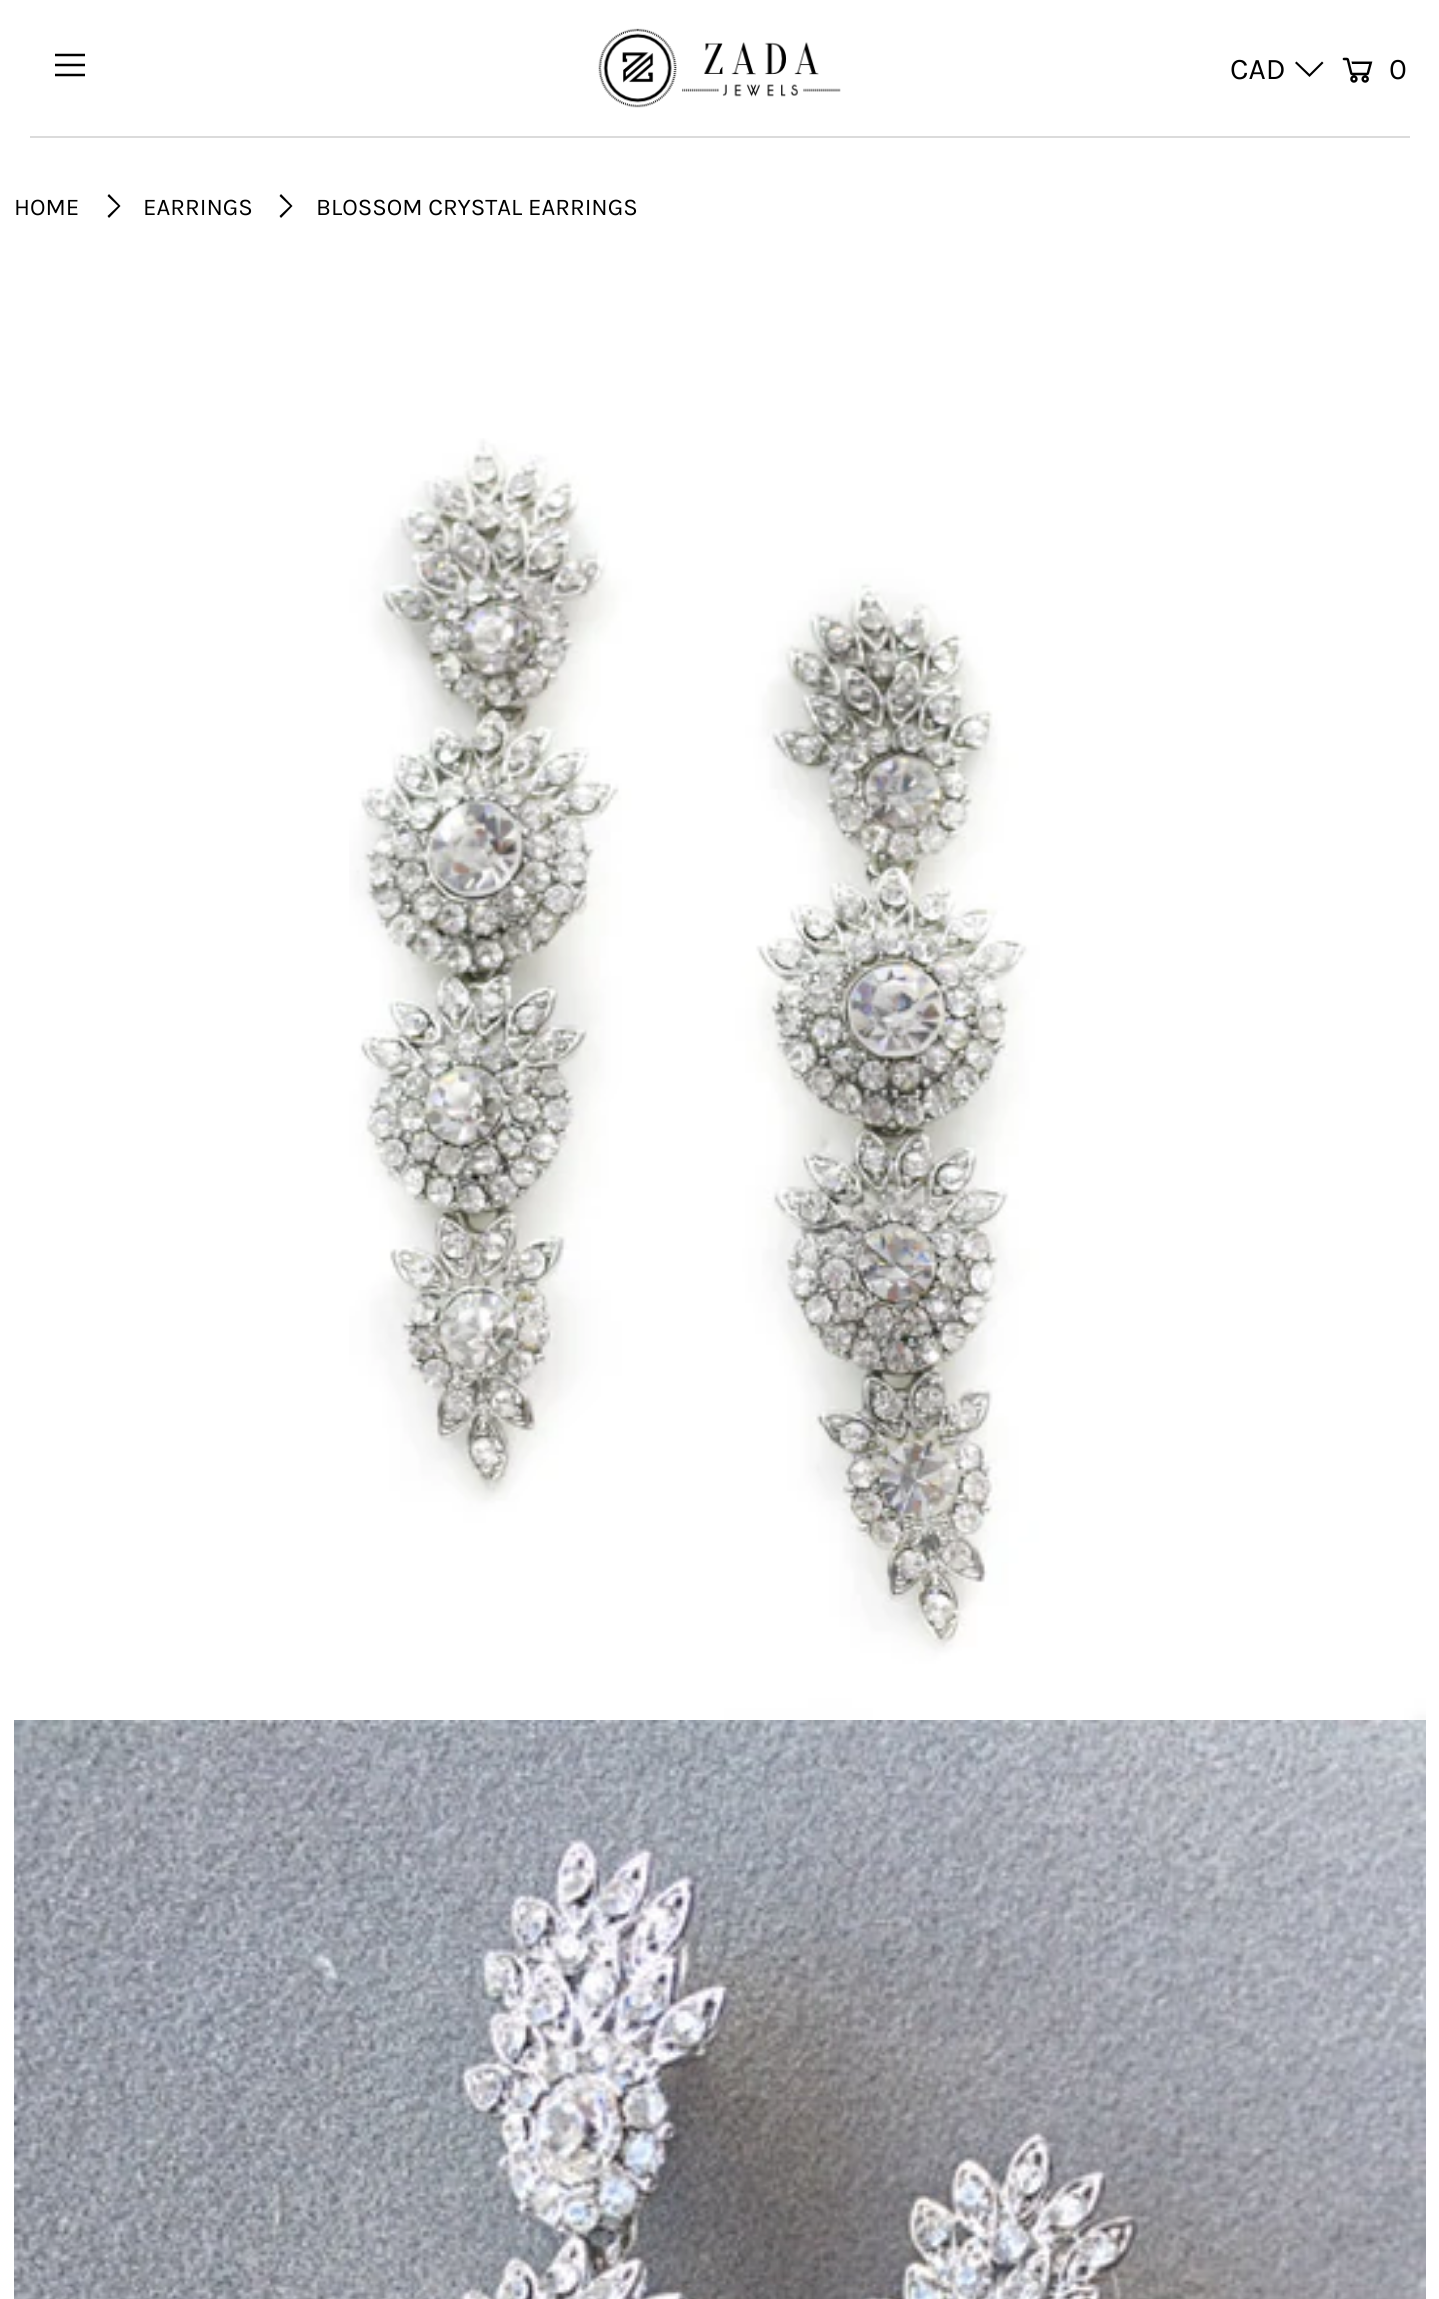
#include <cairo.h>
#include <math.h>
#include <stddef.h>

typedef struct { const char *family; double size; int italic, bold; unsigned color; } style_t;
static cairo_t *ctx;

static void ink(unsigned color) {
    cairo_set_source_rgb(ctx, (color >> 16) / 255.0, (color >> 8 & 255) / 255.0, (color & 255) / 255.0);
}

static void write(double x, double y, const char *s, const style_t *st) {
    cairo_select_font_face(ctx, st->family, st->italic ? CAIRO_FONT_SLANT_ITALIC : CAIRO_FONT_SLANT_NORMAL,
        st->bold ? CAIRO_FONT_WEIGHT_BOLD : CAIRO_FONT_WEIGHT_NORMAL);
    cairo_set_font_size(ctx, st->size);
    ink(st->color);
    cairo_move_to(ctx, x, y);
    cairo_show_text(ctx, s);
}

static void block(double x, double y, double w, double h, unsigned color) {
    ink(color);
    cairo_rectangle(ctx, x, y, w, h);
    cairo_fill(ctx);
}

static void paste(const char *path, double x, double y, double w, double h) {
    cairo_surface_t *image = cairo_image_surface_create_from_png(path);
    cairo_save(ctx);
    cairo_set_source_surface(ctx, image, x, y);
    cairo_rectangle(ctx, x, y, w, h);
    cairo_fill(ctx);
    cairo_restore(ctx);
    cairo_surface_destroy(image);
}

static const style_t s1 = {"Karla", 30, 0, 0, 0x000000};
static const style_t s2 = {"Karla", 24, 0, 0, 0x000000};

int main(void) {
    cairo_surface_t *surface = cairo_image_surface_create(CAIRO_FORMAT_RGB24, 1439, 2299);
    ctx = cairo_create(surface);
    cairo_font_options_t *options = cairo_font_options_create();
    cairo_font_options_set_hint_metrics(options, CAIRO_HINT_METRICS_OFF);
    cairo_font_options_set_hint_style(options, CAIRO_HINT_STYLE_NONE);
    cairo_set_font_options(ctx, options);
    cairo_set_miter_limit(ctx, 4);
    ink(0xffffff);
    cairo_paint(ctx);
    block(30, 136, 1380, 2, 0xdbdbdb);
    paste("pic1.png", 55, 53, 30, 24);
    paste("pic2.png", 598, 28, 243, 80);
    write(1230, 79, "CAD", &s1);
    cairo_new_path(ctx);
    cairo_move_to(ctx, 1296.5, 61.5);
    cairo_line_to(ctx, 1309.5, 74);
    cairo_line_to(ctx, 1322, 61.5);
    cairo_line_to(ctx, 1323.5, 63);
    cairo_line_to(ctx, 1309.5, 77);
    cairo_line_to(ctx, 1295, 63);
    cairo_close_path(ctx);
    cairo_fill(ctx);
    paste("pic3.png", 1342, 57, 31, 26);
    write(1389, 79, "0", &s1);
    write(14, 215, "HOME", &s2);
    cairo_new_path(ctx);
    cairo_move_to(ctx, 109, 194);
    cairo_line_to(ctx, 120.5, 206);
    cairo_line_to(ctx, 109, 218);
    cairo_line_to(ctx, 107.5, 216);
    cairo_line_to(ctx, 118, 206);
    cairo_line_to(ctx, 107.5, 196);
    cairo_close_path(ctx);
    cairo_fill(ctx);
    write(143, 215, "EARRINGS", &s2);
    cairo_new_path(ctx);
    cairo_move_to(ctx, 281, 194);
    cairo_line_to(ctx, 292.5, 206);
    cairo_line_to(ctx, 281, 218);
    cairo_line_to(ctx, 279.5, 216);
    cairo_line_to(ctx, 290, 206);
    cairo_line_to(ctx, 279.5, 196);
    cairo_close_path(ctx);
    cairo_fill(ctx);
    write(316, 215, "BLOSSOM CRYSTAL EARRINGS", &s2);
    paste("pic4.png", 349, 438, 1077, 1282);
    paste("pic5.png", 14, 1720, 1412, 579);
    cairo_surface_write_to_png(surface, "screenshot.png");
    cairo_font_options_destroy(options);
    cairo_destroy(ctx);
    cairo_surface_destroy(surface);
    return 0;
}
